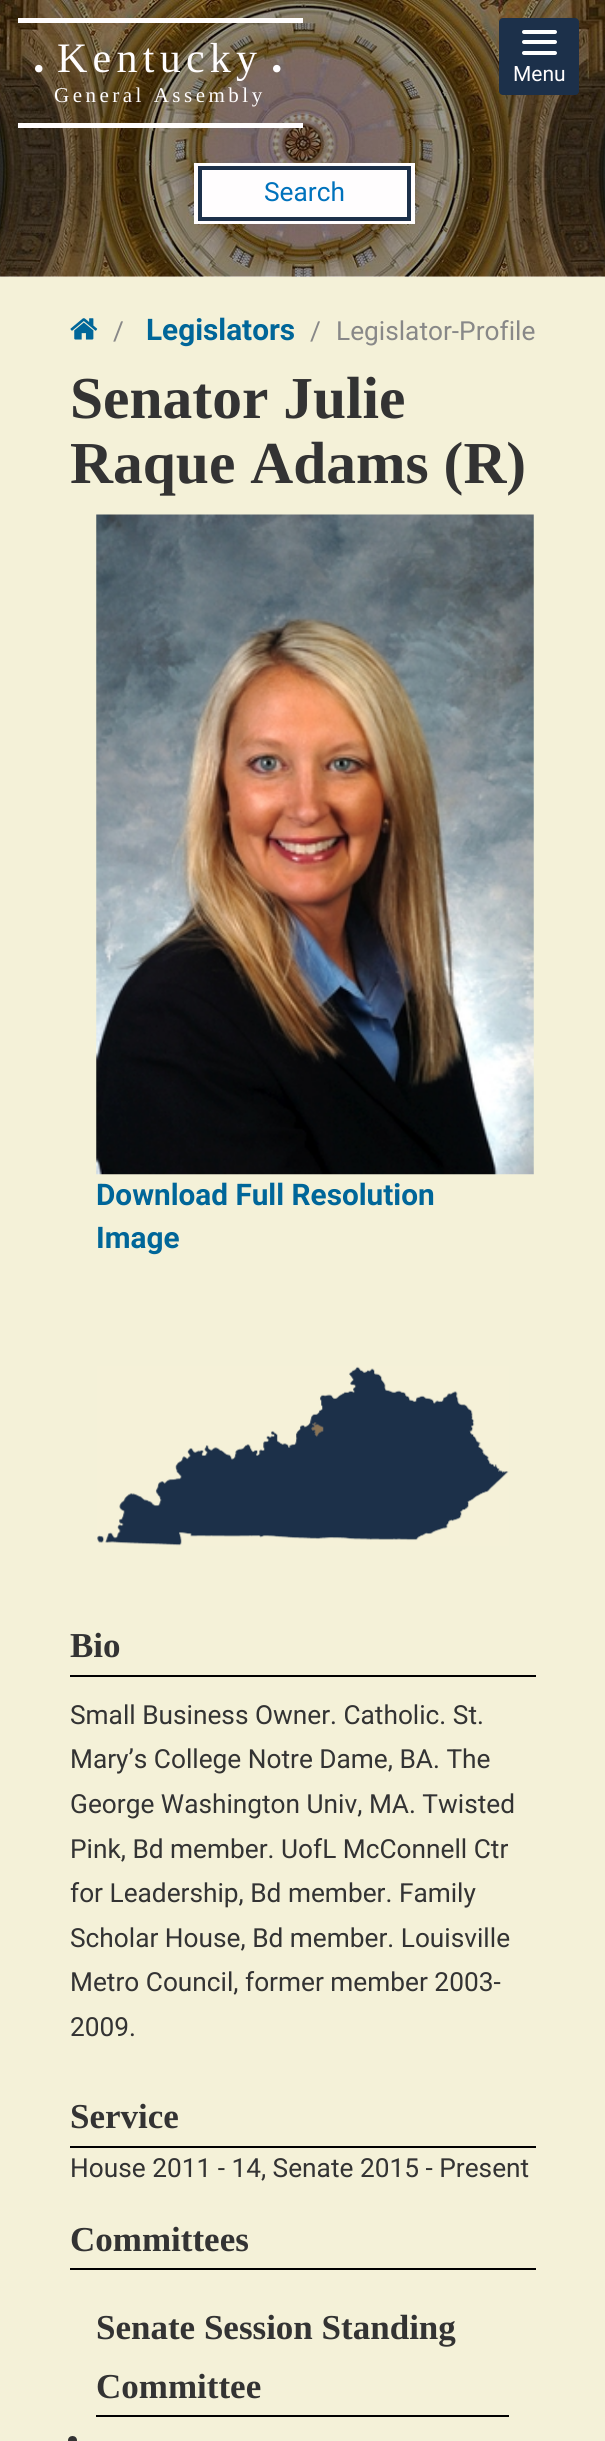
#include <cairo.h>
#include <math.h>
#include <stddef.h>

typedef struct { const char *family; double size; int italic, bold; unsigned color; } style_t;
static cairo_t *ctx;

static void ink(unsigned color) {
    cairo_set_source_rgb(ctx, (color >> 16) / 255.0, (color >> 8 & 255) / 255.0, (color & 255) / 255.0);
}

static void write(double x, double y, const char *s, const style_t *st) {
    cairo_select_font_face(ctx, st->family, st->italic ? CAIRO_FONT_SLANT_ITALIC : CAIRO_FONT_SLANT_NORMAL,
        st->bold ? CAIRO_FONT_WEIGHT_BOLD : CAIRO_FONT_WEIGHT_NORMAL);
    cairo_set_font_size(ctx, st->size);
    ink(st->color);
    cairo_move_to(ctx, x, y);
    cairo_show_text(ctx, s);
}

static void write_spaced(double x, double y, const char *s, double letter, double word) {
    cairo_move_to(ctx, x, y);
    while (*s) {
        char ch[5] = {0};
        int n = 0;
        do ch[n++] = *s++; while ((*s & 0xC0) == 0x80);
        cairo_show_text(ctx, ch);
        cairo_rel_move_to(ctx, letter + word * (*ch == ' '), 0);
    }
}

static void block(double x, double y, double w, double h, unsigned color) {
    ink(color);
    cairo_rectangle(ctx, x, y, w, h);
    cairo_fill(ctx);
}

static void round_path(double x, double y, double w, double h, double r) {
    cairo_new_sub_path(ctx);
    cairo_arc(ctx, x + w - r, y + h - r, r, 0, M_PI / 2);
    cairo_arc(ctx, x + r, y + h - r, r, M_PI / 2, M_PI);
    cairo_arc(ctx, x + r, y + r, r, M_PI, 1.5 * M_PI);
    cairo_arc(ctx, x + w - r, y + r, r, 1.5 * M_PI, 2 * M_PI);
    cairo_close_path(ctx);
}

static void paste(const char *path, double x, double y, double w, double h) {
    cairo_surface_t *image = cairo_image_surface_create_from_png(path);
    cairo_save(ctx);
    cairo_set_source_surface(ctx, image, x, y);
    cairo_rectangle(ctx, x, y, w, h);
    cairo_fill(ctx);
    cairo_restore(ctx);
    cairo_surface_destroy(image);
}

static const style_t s1 = {"Roboto", 21, 0, 0, 0xfffdfe};
static const style_t s2 = {"Roboto", 26.25, 0, 0, 0x0072bc};
static const style_t s3 = {"Roboto", 26.25, 0, 0, 0x888888};
static const style_t s4 = {"Roboto", 29.75, 0, 1, 0x006699};
static const style_t s5 = {"Liberation Serif", 59.5, 0, 1, 0x333333};
static const style_t s6 = {"Liberation Serif", 35, 0, 1, 0x333333};
static const style_t s7 = {"Roboto", 26.25, 0, 0, 0x333333};

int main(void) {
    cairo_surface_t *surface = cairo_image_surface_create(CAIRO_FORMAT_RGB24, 605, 2441);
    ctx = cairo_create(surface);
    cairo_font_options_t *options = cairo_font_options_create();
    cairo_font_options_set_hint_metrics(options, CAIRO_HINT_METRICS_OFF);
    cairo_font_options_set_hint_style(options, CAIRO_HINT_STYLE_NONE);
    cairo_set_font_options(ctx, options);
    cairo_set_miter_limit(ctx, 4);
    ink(0xffffff);
    cairo_paint(ctx);
    paste("pic1.png", 0, 0, 605, 277);
    block(18, 18, 285, 5, 0xfffdfe);
    block(18, 123, 285, 5, 0xfffdfe);
    paste("pic2.png", 35, 64, 8, 9);
    cairo_select_font_face(ctx, "Liberation Serif", CAIRO_FONT_SLANT_NORMAL, CAIRO_FONT_WEIGHT_NORMAL);
    cairo_set_font_size(ctx, 42);
    write_spaced(57, 72, "Kentucky", 5.25, 0);
    paste("pic3.png", 273, 64, 8, 9);
    cairo_set_font_size(ctx, 21);
    write_spaced(54, 102, "General Assembly", 3.5, 0);
    ink(0x1c304a);
    round_path(499, 18, 80, 77, 4);
    cairo_fill(ctx);
    ink(0xffffff);
    round_path(522, 40, 35, 4, 2);
    cairo_fill(ctx);
    round_path(522, 30, 35, 4, 2);
    cairo_fill(ctx);
    round_path(522, 51, 35, 4, 2);
    cairo_fill(ctx);
    write(513, 81, "Menu", &s1);
    block(194, 163, 221, 61, 0xfffdfe);
    cairo_rectangle(ctx, 200, 168, 209, 51);
    ink(0x1c304a);
    cairo_set_line_width(ctx, 4);
    cairo_stroke(ctx);
    write(264, 201, "Search", &s2);
    block(0, 277, 605, 2164, 0xf4f1d8);
    paste("pic4.png", 70, 318, 28, 22);
    write(113, 340, "/", &s3);
    write(146, 340, "Legislators", &s4);
    write(310, 340, "/", &s3);
    write(336, 340, "Legislator-Profile", &s3);
    write(70, 418, "Senator Julie", &s5);
    write(70, 483, "Raque Adams (R)", &s5);
    paste("pic5.png", 96, 514, 438, 661);
    write(96, 1205, "Download Full Resolution", &s4);
    write(96, 1248, "Image", &s4);
    paste("pic6.png", 97, 1366, 412, 180);
    block(70, 1675, 466, 2, 0x000000);
    write(70, 1657, "Bio", &s6);
    write(70, 1724, "Small Business Owner. Catholic. St.", &s7);
    write(70, 1768, "Mary’s College Notre Dame, BA. The", &s7);
    write(70, 1813, "George Washington Univ, MA. Twisted", &s7);
    write(70, 1858, "Pink, Bd member. UofL McConnell Ctr", &s7);
    write(70, 1902, "for Leadership, Bd member. Family", &s7);
    write(70, 1947, "Scholar House, Bd member. Louisville", &s7);
    write(70, 1991, "Metro Council, former member 2003-", &s7);
    write(70, 2036, "2009.", &s7);
    block(70, 2146, 466, 2, 0x000000);
    write(70, 2128, "Service", &s6);
    write(70, 2177, "House 2011 - 14, Senate 2015 - Present", &s7);
    block(70, 2268, 466, 2, 0x000000);
    write(70, 2251, "Committees", &s6);
    block(96, 2415, 413, 2, 0x000000);
    write(96, 2339, "Senate Session Standing", &s6);
    write(96, 2398, "Committee", &s6);
    cairo_new_path(ctx);
    cairo_arc(ctx, 72.5, 2440.5, 4.5, 0, 2 * M_PI);
    cairo_fill(ctx);
    cairo_surface_write_to_png(surface, "screenshot.png");
    cairo_font_options_destroy(options);
    cairo_destroy(ctx);
    cairo_surface_destroy(surface);
    return 0;
}
